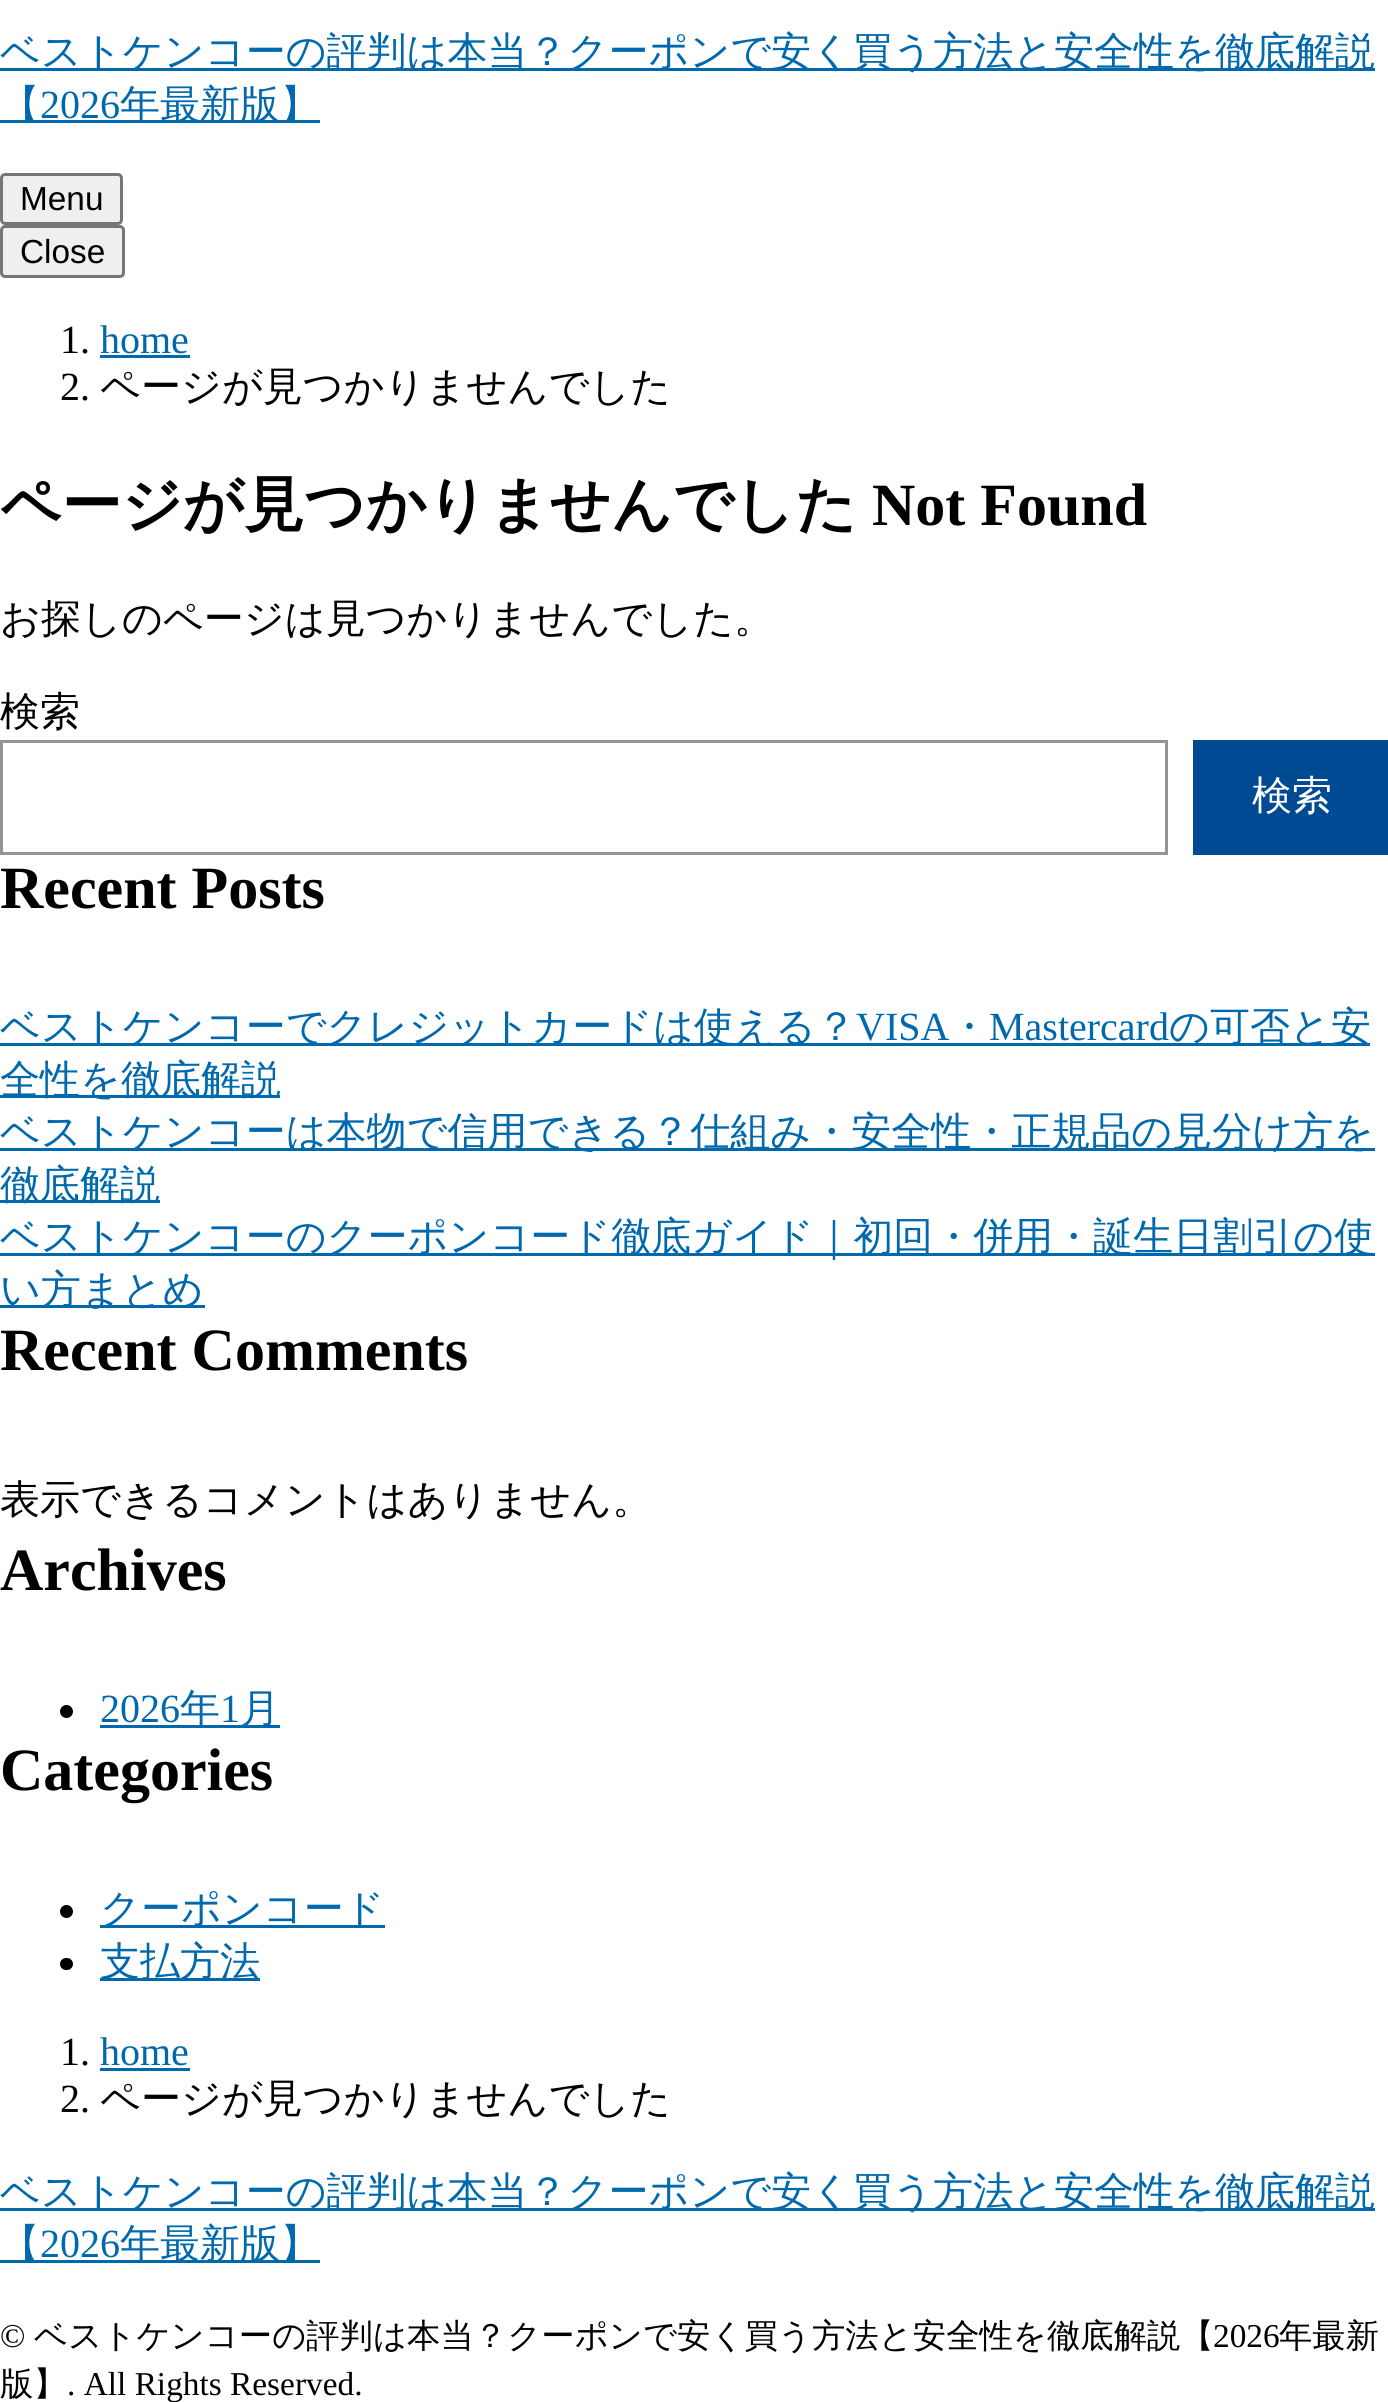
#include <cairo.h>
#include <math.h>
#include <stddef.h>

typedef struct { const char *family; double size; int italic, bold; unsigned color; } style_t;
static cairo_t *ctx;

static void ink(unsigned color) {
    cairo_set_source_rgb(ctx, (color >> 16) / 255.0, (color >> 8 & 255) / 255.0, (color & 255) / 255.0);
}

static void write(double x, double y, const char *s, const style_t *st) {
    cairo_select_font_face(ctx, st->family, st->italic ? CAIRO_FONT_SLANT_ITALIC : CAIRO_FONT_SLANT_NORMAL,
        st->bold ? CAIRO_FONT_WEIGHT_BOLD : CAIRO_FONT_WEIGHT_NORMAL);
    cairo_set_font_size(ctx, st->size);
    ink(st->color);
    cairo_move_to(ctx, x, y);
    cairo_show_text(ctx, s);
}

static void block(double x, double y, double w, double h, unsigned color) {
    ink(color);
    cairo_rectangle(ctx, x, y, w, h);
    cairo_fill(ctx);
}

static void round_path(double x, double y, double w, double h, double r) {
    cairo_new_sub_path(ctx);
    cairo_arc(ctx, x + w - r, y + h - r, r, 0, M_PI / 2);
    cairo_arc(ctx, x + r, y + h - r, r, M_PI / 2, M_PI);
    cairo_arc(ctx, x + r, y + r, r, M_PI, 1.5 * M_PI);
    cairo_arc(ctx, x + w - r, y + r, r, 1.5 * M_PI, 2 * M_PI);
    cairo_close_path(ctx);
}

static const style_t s1 = {"WenQuanYi Zen Hei Medium", 40, 0, 0, 0x0069ad};
static const style_t s2 = {"Liberation Serif", 40, 0, 0, 0x0069ad};
static const style_t s3 = {"Liberation Sans", 33.35, 0, 0, 0x000000};
static const style_t s4 = {"Liberation Serif", 40, 0, 0, 0x000000};
static const style_t s5 = {"WenQuanYi Zen Hei Medium", 40, 0, 0, 0x000000};
static const style_t s6 = {"WenQuanYi Zen Hei", 60, 0, 1, 0x000000};
static const style_t s7 = {"Liberation Serif", 60, 0, 1, 0x000000};
static const style_t s8 = {"WenQuanYi Zen Hei Medium", 40, 0, 0, 0xffffff};
static const style_t s9 = {"Liberation Serif", 33.35, 0, 0, 0x000000};
static const style_t s10 = {"WenQuanYi Zen Hei Medium", 33.35, 0, 0, 0x000000};

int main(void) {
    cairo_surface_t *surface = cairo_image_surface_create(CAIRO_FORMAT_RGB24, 1388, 2402);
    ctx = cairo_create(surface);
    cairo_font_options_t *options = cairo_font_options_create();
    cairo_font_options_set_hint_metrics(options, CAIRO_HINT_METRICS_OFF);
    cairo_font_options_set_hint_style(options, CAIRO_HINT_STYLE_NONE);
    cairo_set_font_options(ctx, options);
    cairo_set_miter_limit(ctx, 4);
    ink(0xffffff);
    cairo_paint(ctx);
    block(0, 68, 1375, 3, 0x0069ad);
    write(0, 65, "ベストケンコーの評判は本当？クーポンで安く買う方法と安全性を徹底解説", &s1);
    block(0, 120, 320, 3, 0x0069ad);
    write(0, 118, "【", &s1);
    write(40, 118, "2026", &s2);
    write(120, 118, "年最新版】", &s1);
    ink(0xefefef);
    round_path(1.5, 174.5, 120, 49, 3.5);
    cairo_fill_preserve(ctx);
    ink(0x767676);
    cairo_set_line_width(ctx, 3);
    cairo_stroke(ctx);
    write(20, 210, "Menu", &s3);
    ink(0xefefef);
    round_path(1.5, 226.5, 122, 50, 3.5);
    cairo_fill_preserve(ctx);
    ink(0x767676);
    cairo_stroke(ctx);
    write(20, 263, "Close", &s3);
    write(60, 353, "1.", &s4);
    write(100, 353, "home", &s2);
    block(100, 355, 90, 3, 0x0069ad);
    write(60, 400, "2.", &s4);
    write(100, 400, "ページが見つかりませんでした", &s5);
    write(0, 525, "ページが見つかりませんでした", &s6);
    write(872, 525, "Not Found", &s7);
    write(0, 632, "お探しのページは見つかりませんでした。", &s5);
    write(0, 725, "検索", &s5);
    cairo_rectangle(ctx, 1.5, 741.5, 1165, 112);
    ink(0x949494);
    cairo_stroke(ctx);
    block(1193, 740, 195, 115, 0x004a93);
    write(1252, 809, "検索", &s8);
    write(0, 908, "Recent Posts", &s7);
    block(0, 1043, 1370, 3, 0x0069ad);
    write(0, 1040, "ベストケンコーでクレジットカードは使える？", &s1);
    write(856, 1040, "VISA", &s2);
    write(949, 1040, "・", &s1);
    write(989, 1040, "Mastercard", &s2);
    write(1169, 1040, "の可否と安", &s1);
    block(0, 1095, 280, 3, 0x0069ad);
    write(0, 1093, "全性を徹底解説", &s1);
    block(0, 1148, 1375, 3, 0x0069ad);
    write(0, 1145, "ベストケンコーは本物で信用できる？仕組み・安全性・正規品の見分け方を", &s1);
    block(0, 1200, 160, 3, 0x0069ad);
    write(0, 1198, "徹底解説", &s1);
    block(0, 1253, 1375, 3, 0x0069ad);
    write(0, 1250, "ベストケンコーのクーポンコード徹底ガイド｜初回・併用・誕生日割引の使", &s1);
    block(0, 1305, 205, 3, 0x0069ad);
    write(0, 1303, "い方まとめ", &s1);
    write(0, 1370, "Recent Comments", &s7);
    write(0, 1513, "表示できるコメントはありません。", &s5);
    write(0, 1590, "Archives", &s7);
    cairo_new_path(ctx);
    cairo_arc(ctx, 66.5, 1711.5, 6.5, 0, 2 * M_PI);
    cairo_fill(ctx);
    write(100, 1722, "2026", &s2);
    block(100, 1725, 180, 3, 0x0069ad);
    write(180, 1722, "年", &s1);
    write(220, 1722, "1", &s2);
    write(240, 1722, "月", &s1);
    write(0, 1790, "Categories", &s7);
    cairo_new_path(ctx);
    cairo_arc(ctx, 66.5, 1911.5, 6.5, 0, 2 * M_PI);
    cairo_fill(ctx);
    block(100, 1925, 285, 3, 0x0069ad);
    write(100, 1922, "クーポンコード", &s1);
    ink(0x000000);
    round_path(60, 1958, 13, 12, 6);
    cairo_fill(ctx);
    block(100, 1978, 160, 3, 0x0069ad);
    write(100, 1975, "支払方法", &s1);
    write(60, 2065, "1.", &s4);
    write(100, 2065, "home", &s2);
    block(100, 2068, 90, 3, 0x0069ad);
    write(60, 2112, "2.", &s4);
    write(100, 2112, "ページが見つかりませんでした", &s5);
    block(0, 2208, 1375, 3, 0x0069ad);
    write(0, 2205, "ベストケンコーの評判は本当？クーポンで安く買う方法と安全性を徹底解説", &s1);
    block(0, 2260, 320, 3, 0x0069ad);
    write(0, 2257, "【", &s1);
    write(40, 2257, "2026", &s2);
    write(120, 2257, "年最新版】", &s1);
    write(0, 2347, "©", &s9);
    write(34, 2347, "ベストケンコーの評判は本当？クーポンで安く買う方法と安全性を徹底解説【", &s10);
    write(1213, 2347, "2026", &s9);
    write(1279, 2347, "年最新", &s10);
    write(0, 2395, "版】", &s10);
    write(67, 2395, ". All Rights Reserved.", &s9);
    cairo_surface_write_to_png(surface, "screenshot.png");
    cairo_font_options_destroy(options);
    cairo_destroy(ctx);
    cairo_surface_destroy(surface);
    return 0;
}
